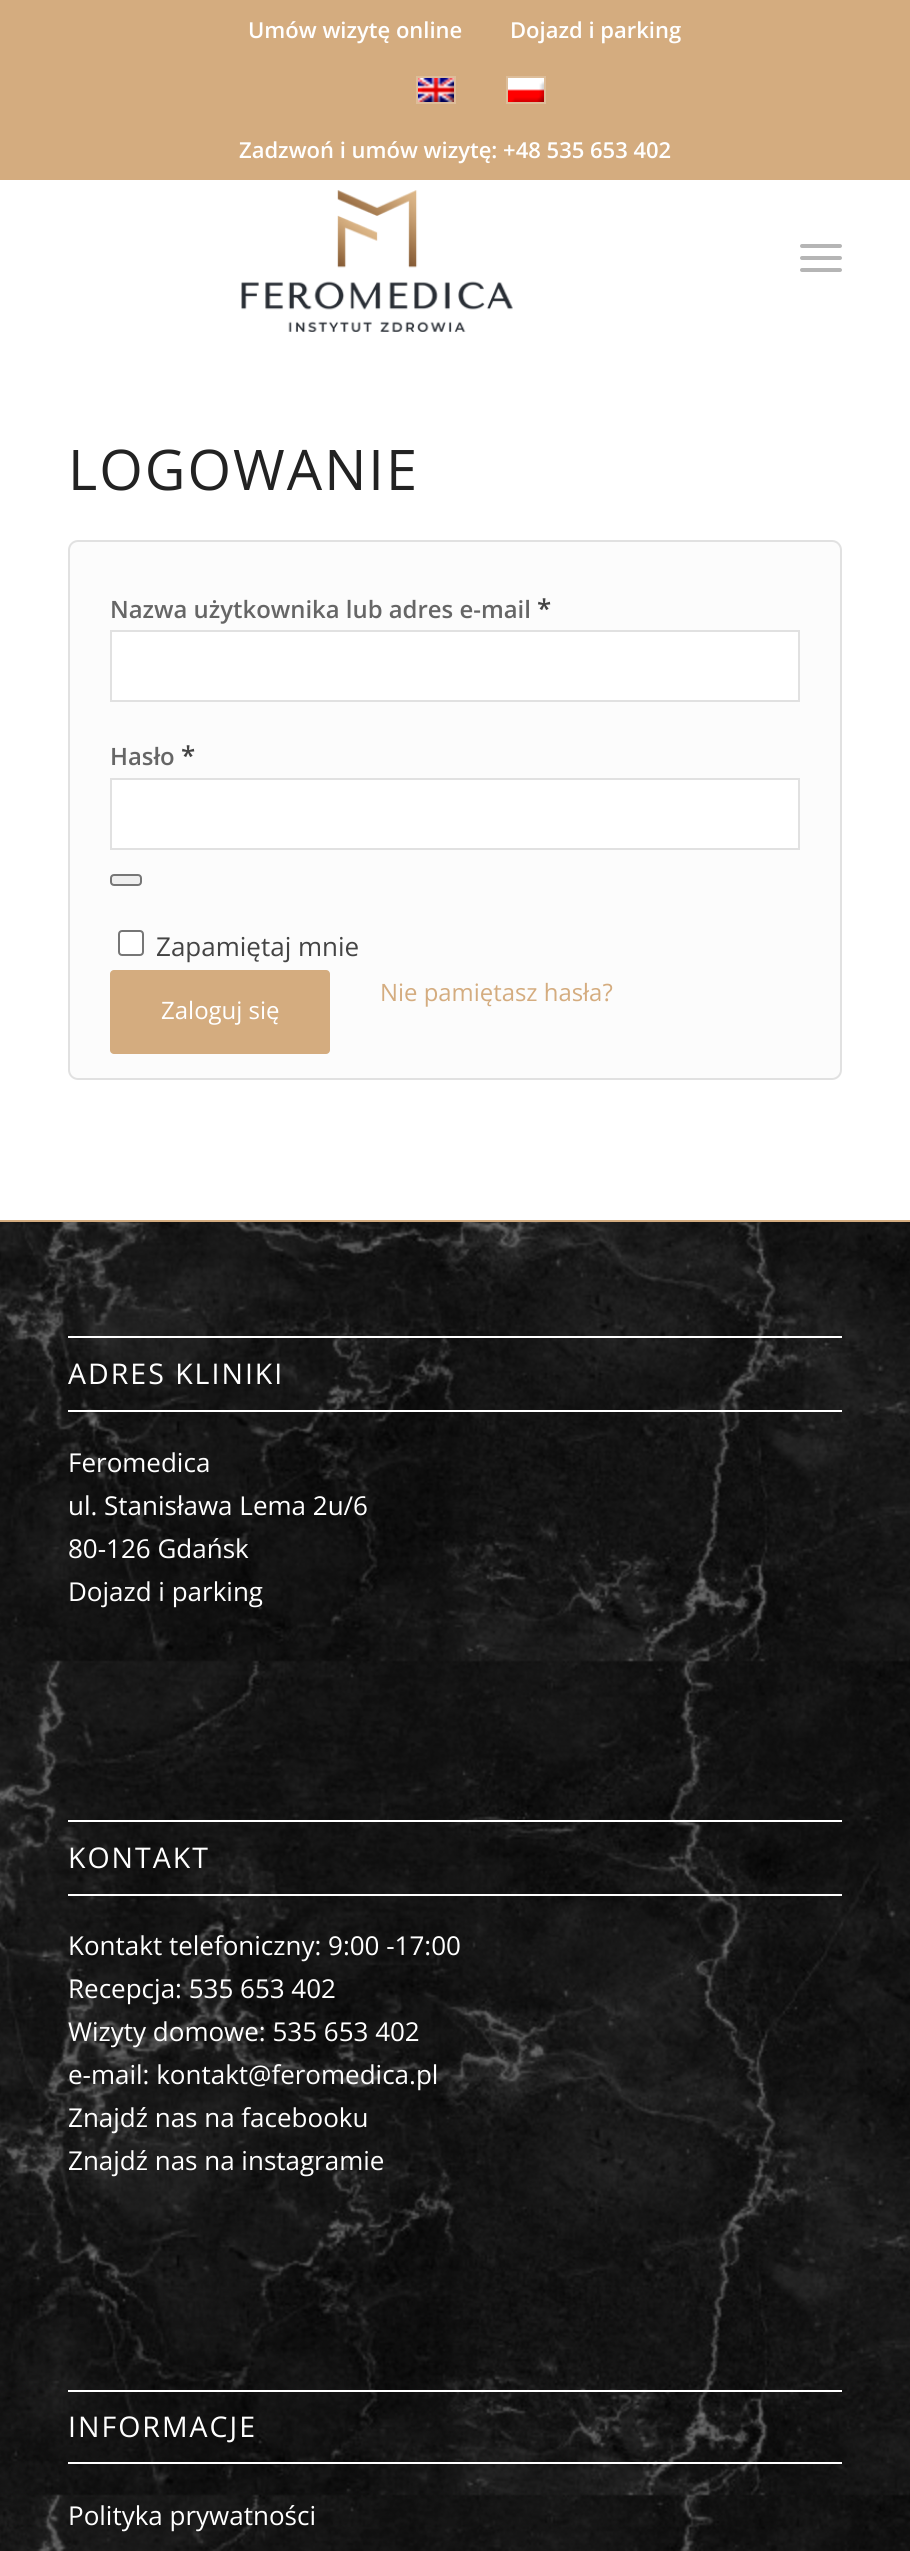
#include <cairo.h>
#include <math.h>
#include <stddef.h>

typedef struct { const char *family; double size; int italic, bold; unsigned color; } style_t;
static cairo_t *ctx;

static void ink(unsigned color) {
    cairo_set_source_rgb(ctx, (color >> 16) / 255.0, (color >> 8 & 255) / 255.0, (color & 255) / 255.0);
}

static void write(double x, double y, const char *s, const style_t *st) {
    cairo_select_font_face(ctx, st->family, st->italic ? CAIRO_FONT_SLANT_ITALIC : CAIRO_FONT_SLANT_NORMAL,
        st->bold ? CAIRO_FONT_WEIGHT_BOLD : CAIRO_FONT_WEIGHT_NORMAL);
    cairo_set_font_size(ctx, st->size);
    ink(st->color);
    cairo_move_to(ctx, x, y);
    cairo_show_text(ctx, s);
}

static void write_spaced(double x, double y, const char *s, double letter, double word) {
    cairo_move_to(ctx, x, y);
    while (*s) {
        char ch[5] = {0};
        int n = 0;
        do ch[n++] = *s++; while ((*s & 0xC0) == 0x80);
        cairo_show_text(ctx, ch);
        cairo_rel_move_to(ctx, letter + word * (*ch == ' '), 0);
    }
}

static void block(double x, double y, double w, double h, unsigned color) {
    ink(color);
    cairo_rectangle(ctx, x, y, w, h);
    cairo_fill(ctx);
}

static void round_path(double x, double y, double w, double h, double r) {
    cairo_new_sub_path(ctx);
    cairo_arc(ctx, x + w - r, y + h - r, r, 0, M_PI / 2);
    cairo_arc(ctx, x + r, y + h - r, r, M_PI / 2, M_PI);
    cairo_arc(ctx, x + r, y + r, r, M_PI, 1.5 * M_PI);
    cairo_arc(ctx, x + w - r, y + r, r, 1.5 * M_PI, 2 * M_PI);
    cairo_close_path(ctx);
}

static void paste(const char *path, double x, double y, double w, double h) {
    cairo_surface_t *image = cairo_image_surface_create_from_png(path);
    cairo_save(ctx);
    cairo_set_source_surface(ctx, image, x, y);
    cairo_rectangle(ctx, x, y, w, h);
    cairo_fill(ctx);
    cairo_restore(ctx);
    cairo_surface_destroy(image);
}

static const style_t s1 = {"Open Sans SemiBold", 22, 0, 0, 0xffffff};
static const style_t s2 = {"Open Sans SemiBold", 23.9, 0, 0, 0x666666};
static const style_t s3 = {"Open Sans SemiBold", 26, 0, 0, 0x444444};
static const style_t s4 = {"Open Sans", 26, 0, 0, 0x444444};
static const style_t s5 = {"Open Sans", 24, 0, 0, 0xffffff};
static const style_t s6 = {"Open Sans", 23.9, 0, 0, 0xd4ac7f};
static const style_t s7 = {"Open Sans", 26, 0, 0, 0xffffff};

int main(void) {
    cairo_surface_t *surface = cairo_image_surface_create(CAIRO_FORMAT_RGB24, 910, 2551);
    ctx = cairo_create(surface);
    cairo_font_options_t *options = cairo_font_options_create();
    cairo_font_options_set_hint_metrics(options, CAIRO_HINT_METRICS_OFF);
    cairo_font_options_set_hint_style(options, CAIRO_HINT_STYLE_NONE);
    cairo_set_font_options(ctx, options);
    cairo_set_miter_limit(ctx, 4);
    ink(0xffffff);
    cairo_paint(ctx);
    block(0, 0, 910, 180, 0xd4ac7f);
    write(248, 38, "Umów wizytę online", &s1);
    write(510, 38, "Dojazd i parking", &s1);
    cairo_rectangle(ctx, 417, 77, 38, 26);
    ink(0xddbd99);
    cairo_stroke(ctx);
    paste("pic1.png", 418, 78, 36, 24);
    cairo_rectangle(ctx, 507, 77, 38, 26);
    cairo_stroke(ctx);
    paste("pic2.png", 508, 78, 36, 24);
    write(239, 158, "Zadzwoń i umów wizytę: +48 535 653 402", &s1);
    paste("pic3.png", 241, 190, 272, 142);
    ink(0xb5b5b5);
    round_path(800, 256, 42, 4, 2);
    cairo_fill(ctx);
    round_path(800, 244, 42, 4, 2);
    cairo_fill(ctx);
    round_path(800, 268, 42, 4, 2);
    cairo_fill(ctx);
    cairo_select_font_face(ctx, "Open Sans", CAIRO_FONT_SLANT_NORMAL, CAIRO_FONT_WEIGHT_NORMAL);
    cairo_set_font_size(ctx, 56);
    ink(0x222222);
    write_spaced(68, 490, "LOGOWANIE", 2, 0);
    ink(0xfcfcfc);
    round_path(69, 541, 772, 538, 9);
    cairo_fill_preserve(ctx);
    ink(0xe1e1e1);
    cairo_stroke(ctx);
    write(110, 618, "Nazwa użytkownika lub adres e-mail", &s2);
    write(537, 618, "*", &s3);
    ink(0xffffff);
    cairo_rectangle(ctx, 111, 631, 688, 70);
    cairo_fill_preserve(ctx);
    ink(0xe1e1e1);
    cairo_stroke(ctx);
    write(110, 765, "Hasło", &s2);
    write(181, 765, "*", &s3);
    ink(0xffffff);
    cairo_rectangle(ctx, 111, 779, 688, 70);
    cairo_fill_preserve(ctx);
    ink(0xe1e1e1);
    cairo_stroke(ctx);
    ink(0xefefef);
    round_path(111, 875, 30, 10, 3);
    cairo_fill_preserve(ctx);
    ink(0x767676);
    cairo_stroke(ctx);
    ink(0xffffff);
    round_path(119, 931, 24, 24, 3);
    cairo_fill_preserve(ctx);
    ink(0x767676);
    cairo_stroke(ctx);
    write(156, 956, "Zapamiętaj mnie", &s4);
    ink(0xd4ac7f);
    round_path(110, 970, 220, 84, 4);
    cairo_fill(ctx);
    write(161, 1019, "Zaloguj się", &s5);
    write(380, 1001, "Nie pamiętasz hasła?", &s6);
    paste("pic4.png", 0, 1222, 910, 1329);
    block(0, 1220, 910, 2, 0xd4ac7f);
    block(68, 1336, 774, 2, 0xffffff);
    block(68, 1410, 774, 2, 0xffffff);
    cairo_set_font_size(ctx, 28.5);
    write_spaced(68, 1384, "ADRES KLINIKI", 2, 0);
    write(68, 1472, "Feromedica", &s7);
    write(68, 1515, "ul. Stanisława Lema 2u/6", &s7);
    write(68, 1558, "80-126 Gdańsk", &s7);
    write(68, 1601, "Dojazd i parking", &s7);
    block(68, 1820, 774, 2, 0xffffff);
    block(68, 1894, 774, 2, 0xffffff);
    cairo_set_font_size(ctx, 28.5);
    write_spaced(68, 1868, "KONTAKT", 2, 0);
    write(68, 1955, "Kontakt telefoniczny: 9:00 -17:00", &s7);
    write(68, 1998, "Recepcja: 535 653 402", &s7);
    write(68, 2041, "Wizyty domowe: 535 653 402", &s7);
    write(68, 2084, "e-mail: kontakt@feromedica.pl", &s7);
    write(68, 2127, "Znajdź nas na facebooku", &s7);
    write(68, 2170, "Znajdź nas na instagramie", &s7);
    block(68, 2390, 774, 2, 0xffffff);
    block(68, 2462, 774, 2, 0xffffff);
    cairo_set_font_size(ctx, 28.5);
    write_spaced(68, 2437, "INFORMACJE", 2, 0);
    write(68, 2525, "Polityka prywatności", &s7);
    cairo_surface_write_to_png(surface, "screenshot.png");
    cairo_font_options_destroy(options);
    cairo_destroy(ctx);
    cairo_surface_destroy(surface);
    return 0;
}
